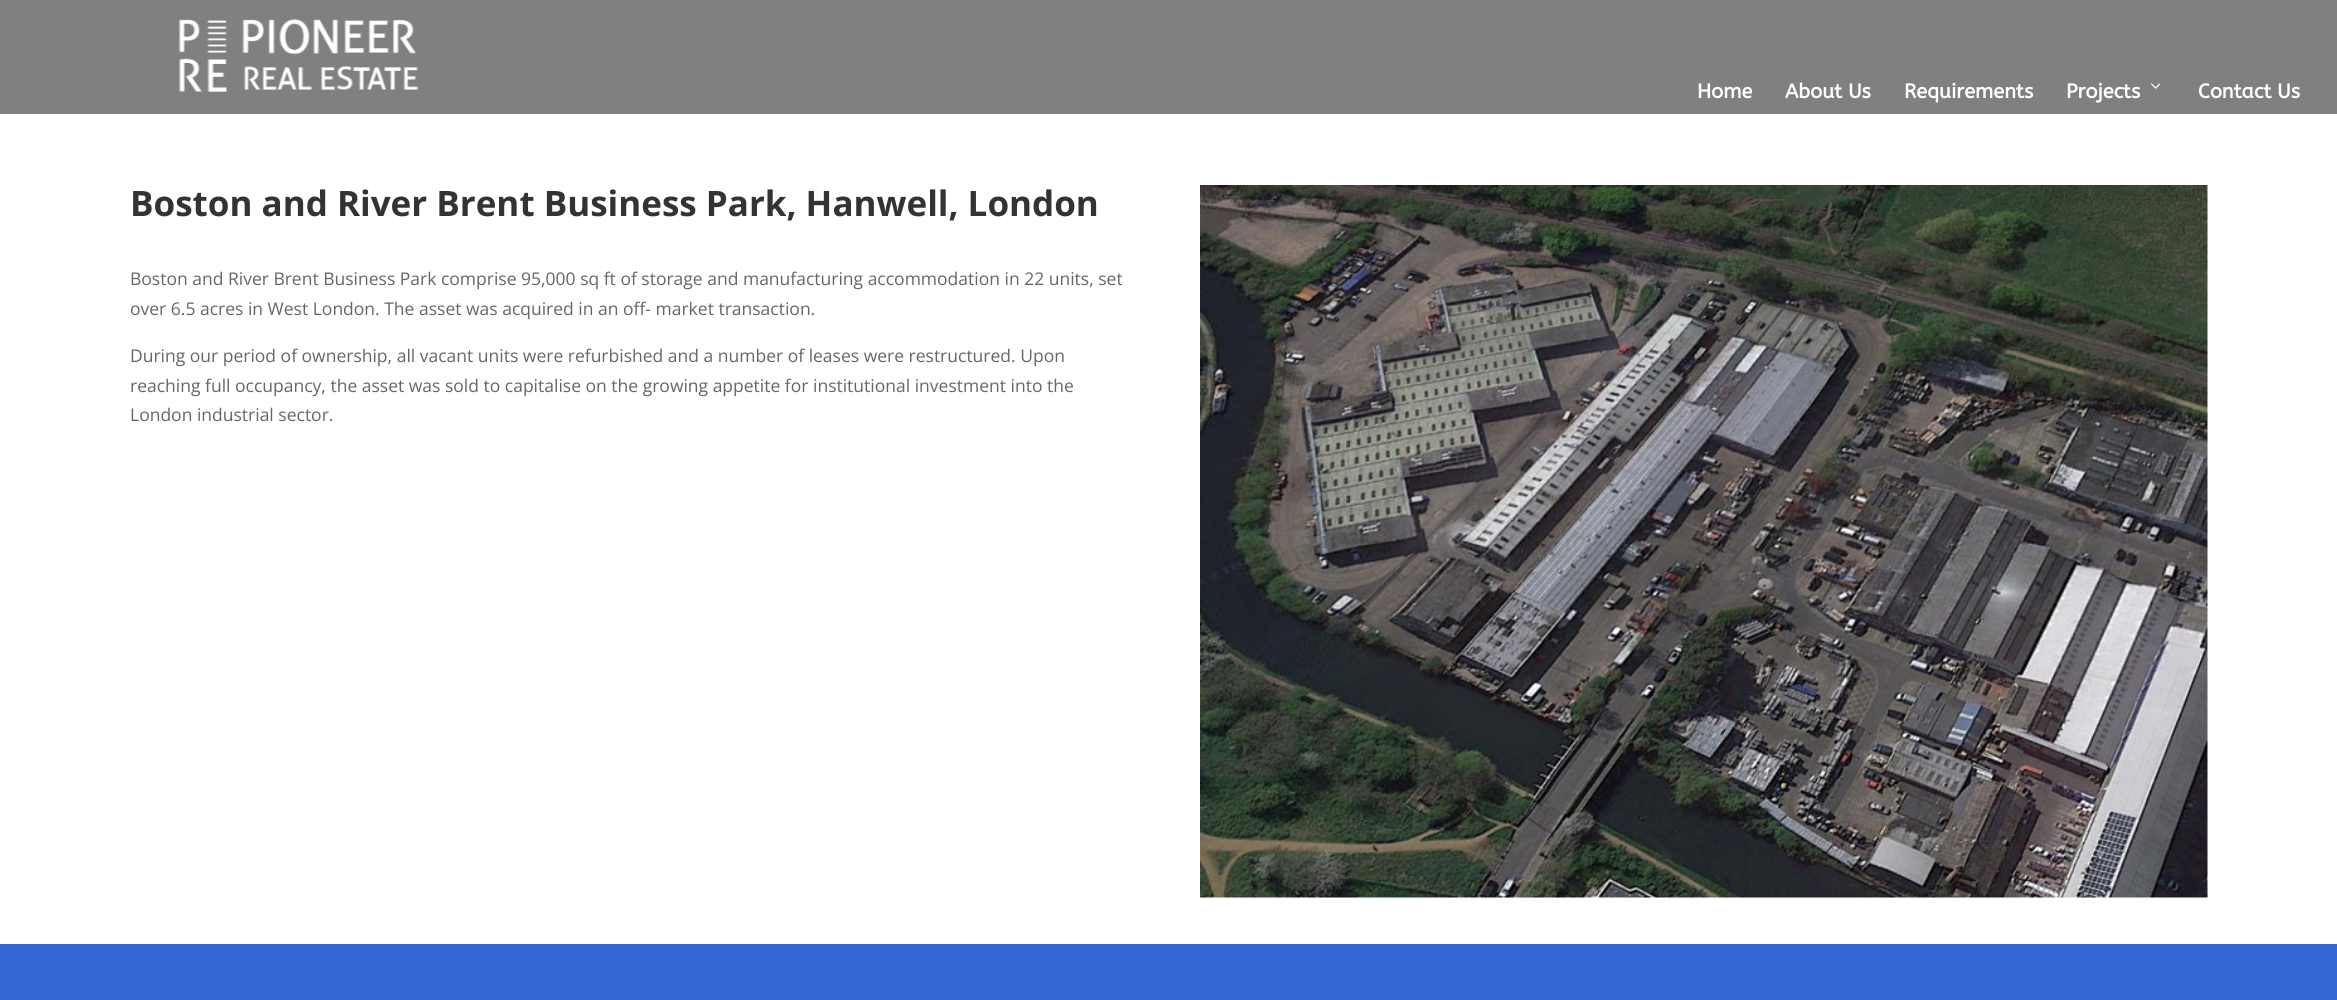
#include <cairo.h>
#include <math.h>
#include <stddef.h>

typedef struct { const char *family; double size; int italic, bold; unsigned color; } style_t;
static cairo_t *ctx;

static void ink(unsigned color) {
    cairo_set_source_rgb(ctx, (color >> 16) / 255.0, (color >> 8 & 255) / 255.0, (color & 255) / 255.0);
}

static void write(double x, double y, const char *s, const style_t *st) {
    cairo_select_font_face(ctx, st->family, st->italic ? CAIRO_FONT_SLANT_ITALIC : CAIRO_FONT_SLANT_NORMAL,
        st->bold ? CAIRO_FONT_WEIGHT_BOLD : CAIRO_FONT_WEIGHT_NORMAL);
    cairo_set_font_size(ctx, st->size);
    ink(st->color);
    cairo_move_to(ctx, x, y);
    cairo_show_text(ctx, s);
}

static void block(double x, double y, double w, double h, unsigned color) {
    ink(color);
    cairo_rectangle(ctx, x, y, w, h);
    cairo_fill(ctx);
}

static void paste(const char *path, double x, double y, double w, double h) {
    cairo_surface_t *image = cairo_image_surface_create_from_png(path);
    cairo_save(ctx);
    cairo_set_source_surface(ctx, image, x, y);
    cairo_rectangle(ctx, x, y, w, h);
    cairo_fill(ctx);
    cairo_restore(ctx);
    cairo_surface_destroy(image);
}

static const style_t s1 = {"ABeeZee", 20, 0, 1, 0xffffff};
static const style_t s2 = {"Open Sans", 35, 0, 1, 0x333333};
static const style_t s3 = {"Open Sans", 17.5, 0, 0, 0x666666};

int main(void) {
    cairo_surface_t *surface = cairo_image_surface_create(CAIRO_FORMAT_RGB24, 2337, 1000);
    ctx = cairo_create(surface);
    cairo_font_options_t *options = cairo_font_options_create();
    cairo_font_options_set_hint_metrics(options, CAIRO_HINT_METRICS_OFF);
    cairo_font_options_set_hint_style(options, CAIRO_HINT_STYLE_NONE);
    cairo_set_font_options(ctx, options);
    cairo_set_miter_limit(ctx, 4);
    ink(0xffffff);
    cairo_paint(ctx);
    block(0, 0, 2337, 114, 0x808080);
    paste("pic1.png", 178, 19, 241, 73);
    write(1697, 98, "Home", &s1);
    write(1785, 98, "About Us", &s1);
    write(1904, 98, "Requirements", &s1);
    write(2066, 98, "Projects", &s1);
    paste("pic2.png", 2151, 83, 10, 6);
    write(2198, 98, "Contact Us", &s1);
    write(130, 216, "Boston and River Brent Business Park, Hanwell, London", &s2);
    write(130, 285, "Boston and River Brent Business Park comprise 95,000 sq ft of storage and manufacturing accommodation in 22 units, set", &s3);
    write(130, 315, "over 6.5 acres in West London. The asset was acquired in an off- market transaction.", &s3);
    write(130, 362, "During our period of ownership, all vacant units were refurbished and a number of leases were restructured. Upon", &s3);
    write(130, 392, "reaching full occupancy, the asset was sold to capitalise on the growing appetite for institutional investment into the", &s3);
    write(130, 421, "London industrial sector.", &s3);
    paste("pic3.png", 1200, 185, 1008, 713);
    block(0, 944, 2337, 56, 0x3467d4);
    cairo_surface_write_to_png(surface, "screenshot.png");
    cairo_font_options_destroy(options);
    cairo_destroy(ctx);
    cairo_surface_destroy(surface);
    return 0;
}
